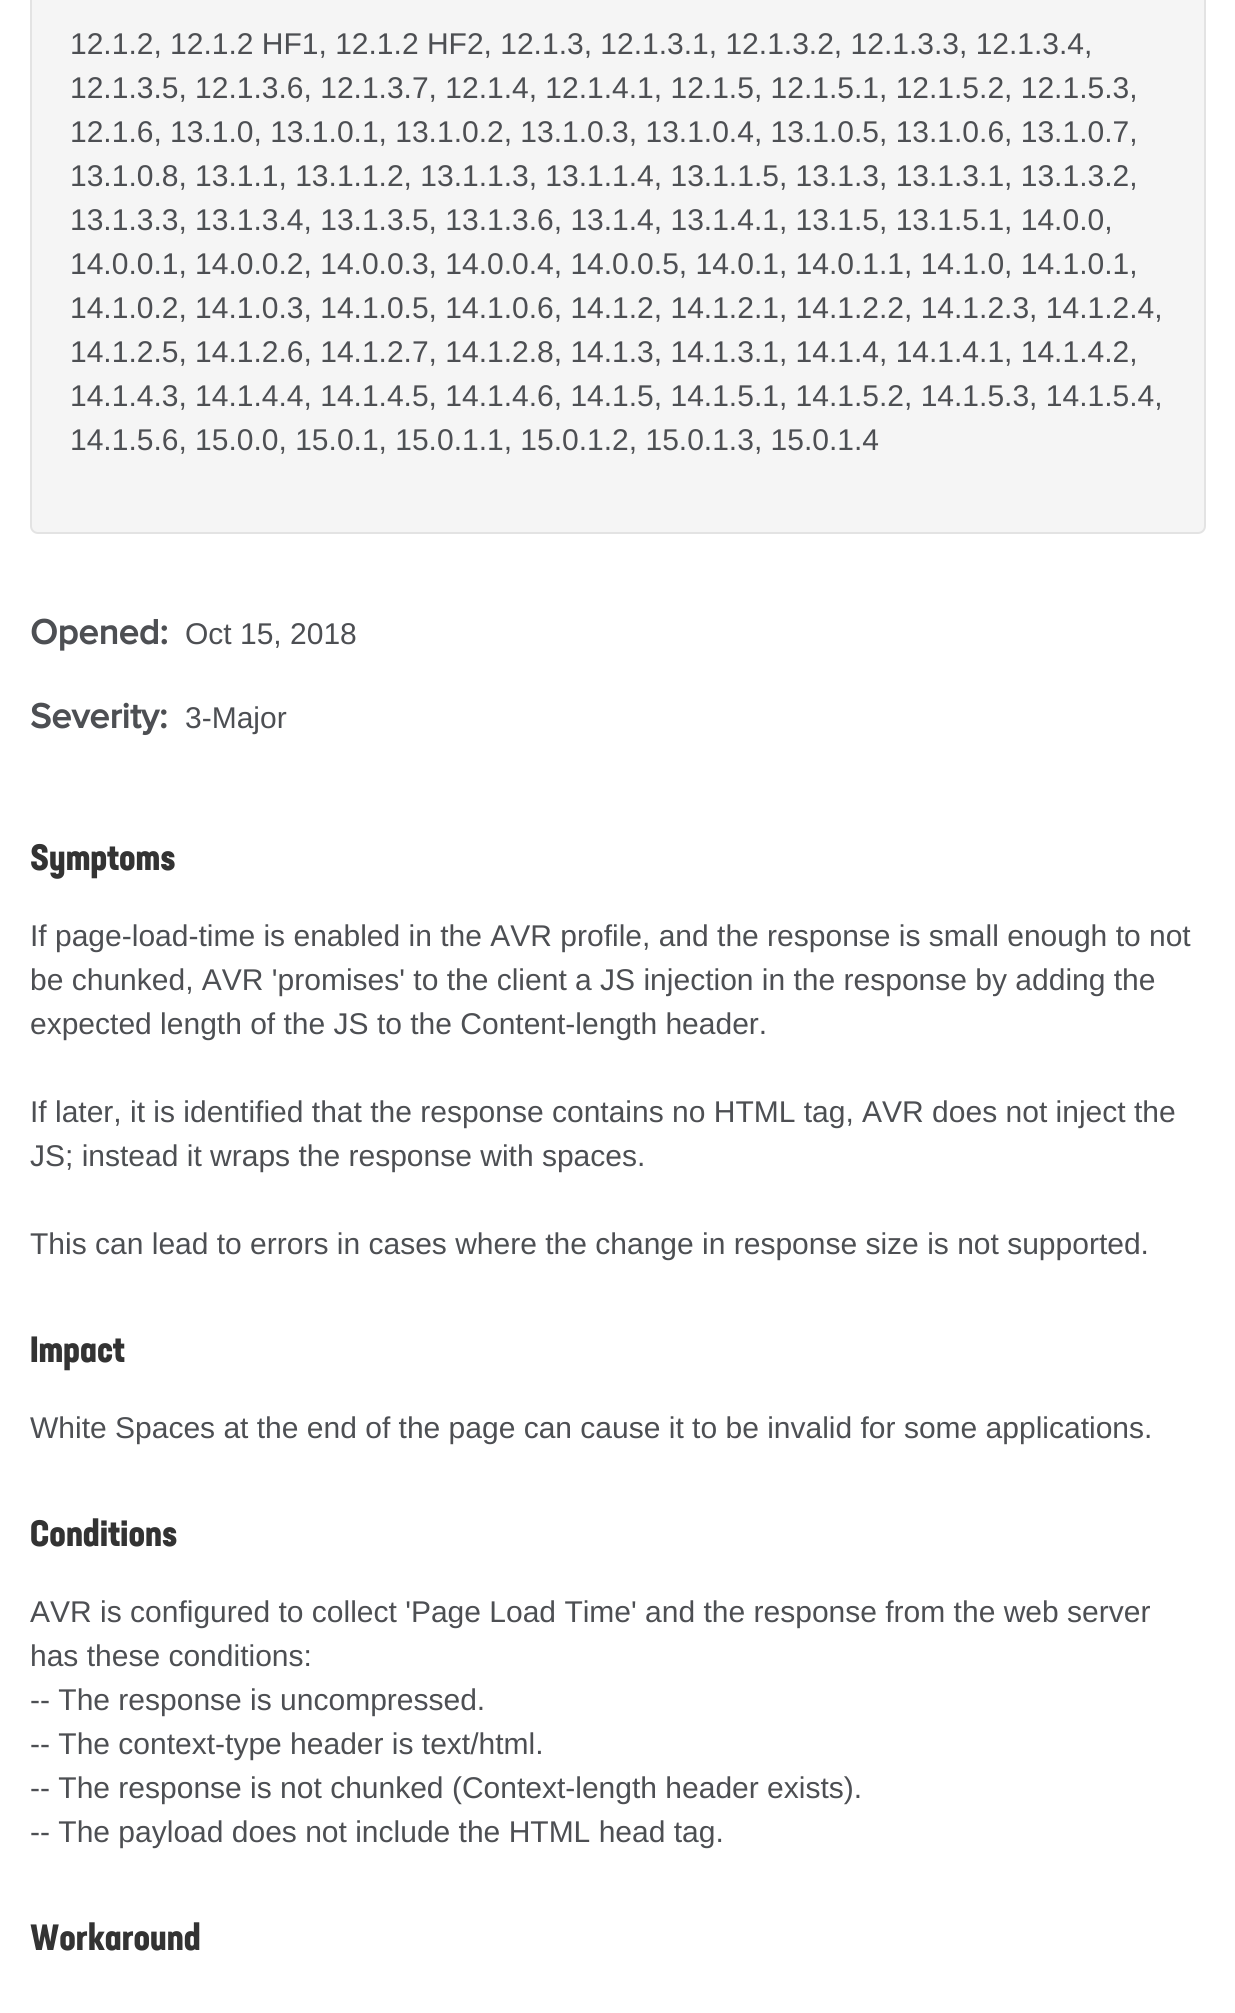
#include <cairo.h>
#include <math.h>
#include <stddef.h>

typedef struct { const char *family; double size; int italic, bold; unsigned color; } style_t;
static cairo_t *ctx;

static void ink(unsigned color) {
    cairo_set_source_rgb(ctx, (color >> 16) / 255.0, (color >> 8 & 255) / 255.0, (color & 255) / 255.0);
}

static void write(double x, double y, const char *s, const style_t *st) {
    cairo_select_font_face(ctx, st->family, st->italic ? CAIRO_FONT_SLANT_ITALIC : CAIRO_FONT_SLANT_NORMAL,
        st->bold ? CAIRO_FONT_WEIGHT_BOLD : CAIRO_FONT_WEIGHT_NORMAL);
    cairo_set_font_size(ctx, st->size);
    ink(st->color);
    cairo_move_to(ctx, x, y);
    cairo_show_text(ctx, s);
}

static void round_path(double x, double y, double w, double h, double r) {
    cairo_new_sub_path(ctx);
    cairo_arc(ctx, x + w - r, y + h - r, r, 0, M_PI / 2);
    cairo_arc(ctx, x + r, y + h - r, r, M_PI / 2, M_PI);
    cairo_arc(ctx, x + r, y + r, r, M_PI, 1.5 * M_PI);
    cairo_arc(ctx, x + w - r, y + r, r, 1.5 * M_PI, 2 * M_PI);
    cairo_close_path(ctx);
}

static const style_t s1 = {"Liberation Sans", 30, 0, 0, 0x4d4f53};
static const style_t s2 = {"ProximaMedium", 36, 0, 1, 0x4d4f53};
static const style_t s3 = {"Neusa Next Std", 36, 0, 1, 0x333333};

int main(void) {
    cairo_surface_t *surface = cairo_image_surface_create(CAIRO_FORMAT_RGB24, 1235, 2013);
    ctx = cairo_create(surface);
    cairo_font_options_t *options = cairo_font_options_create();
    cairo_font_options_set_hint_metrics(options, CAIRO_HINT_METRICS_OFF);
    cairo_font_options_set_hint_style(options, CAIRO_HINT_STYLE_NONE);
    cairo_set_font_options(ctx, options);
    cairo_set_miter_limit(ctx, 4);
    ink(0xffffff);
    cairo_paint(ctx);
    ink(0xf5f5f5);
    round_path(31, -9, 1174, 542, 7);
    cairo_fill_preserve(ctx);
    ink(0xe3e3e3);
    cairo_stroke(ctx);
    write(70, 54, "12.1.2, 12.1.2 HF1, 12.1.2 HF2, 12.1.3, 12.1.3.1, 12.1.3.2, 12.1.3.3, 12.1.3.4,", &s1);
    write(70, 98, "12.1.3.5, 12.1.3.6, 12.1.3.7, 12.1.4, 12.1.4.1, 12.1.5, 12.1.5.1, 12.1.5.2, 12.1.5.3,", &s1);
    write(70, 142, "12.1.6, 13.1.0, 13.1.0.1, 13.1.0.2, 13.1.0.3, 13.1.0.4, 13.1.0.5, 13.1.0.6, 13.1.0.7,", &s1);
    write(70, 186, "13.1.0.8, 13.1.1, 13.1.1.2, 13.1.1.3, 13.1.1.4, 13.1.1.5, 13.1.3, 13.1.3.1, 13.1.3.2,", &s1);
    write(70, 230, "13.1.3.3, 13.1.3.4, 13.1.3.5, 13.1.3.6, 13.1.4, 13.1.4.1, 13.1.5, 13.1.5.1, 14.0.0,", &s1);
    write(70, 274, "14.0.0.1, 14.0.0.2, 14.0.0.3, 14.0.0.4, 14.0.0.5, 14.0.1, 14.0.1.1, 14.1.0, 14.1.0.1,", &s1);
    write(70, 318, "14.1.0.2, 14.1.0.3, 14.1.0.5, 14.1.0.6, 14.1.2, 14.1.2.1, 14.1.2.2, 14.1.2.3, 14.1.2.4,", &s1);
    write(70, 362, "14.1.2.5, 14.1.2.6, 14.1.2.7, 14.1.2.8, 14.1.3, 14.1.3.1, 14.1.4, 14.1.4.1, 14.1.4.2,", &s1);
    write(70, 406, "14.1.4.3, 14.1.4.4, 14.1.4.5, 14.1.4.6, 14.1.5, 14.1.5.1, 14.1.5.2, 14.1.5.3, 14.1.5.4,", &s1);
    write(70, 450, "14.1.5.6, 15.0.0, 15.0.1, 15.0.1.1, 15.0.1.2, 15.0.1.3, 15.0.1.4", &s1);
    write(30, 644, "Opened:", &s2);
    write(185, 644, "Oct 15, 2018", &s1);
    write(30, 728, "Severity:", &s2);
    write(185, 728, "3-Major", &s1);
    write(30, 870, "Symptoms", &s3);
    write(30, 946, "If page-load-time is enabled in the AVR profile, and the response is small enough to not", &s1);
    write(30, 990, "be chunked, AVR 'promises' to the client a JS injection in the response by adding the", &s1);
    write(30, 1034, "expected length of the JS to the Content-length header.", &s1);
    write(30, 1122, "If later, it is identified that the response contains no HTML tag, AVR does not inject the", &s1);
    write(30, 1166, "JS; instead it wraps the response with spaces.", &s1);
    write(30, 1254, "This can lead to errors in cases where the change in response size is not supported.", &s1);
    write(30, 1362, "Impact", &s3);
    write(30, 1438, "White Spaces at the end of the page can cause it to be invalid for some applications.", &s1);
    write(30, 1546, "Conditions", &s3);
    write(30, 1622, "AVR is configured to collect 'Page Load Time' and the response from the web server", &s1);
    write(30, 1666, "has these conditions:", &s1);
    write(30, 1710, "-- The response is uncompressed.", &s1);
    write(30, 1754, "-- The context-type header is text/html.", &s1);
    write(30, 1798, "-- The response is not chunked (Context-length header exists).", &s1);
    write(30, 1842, "-- The payload does not include the HTML head tag.", &s1);
    write(30, 1950, "Workaround", &s3);
    cairo_surface_write_to_png(surface, "screenshot.png");
    cairo_font_options_destroy(options);
    cairo_destroy(ctx);
    cairo_surface_destroy(surface);
    return 0;
}
